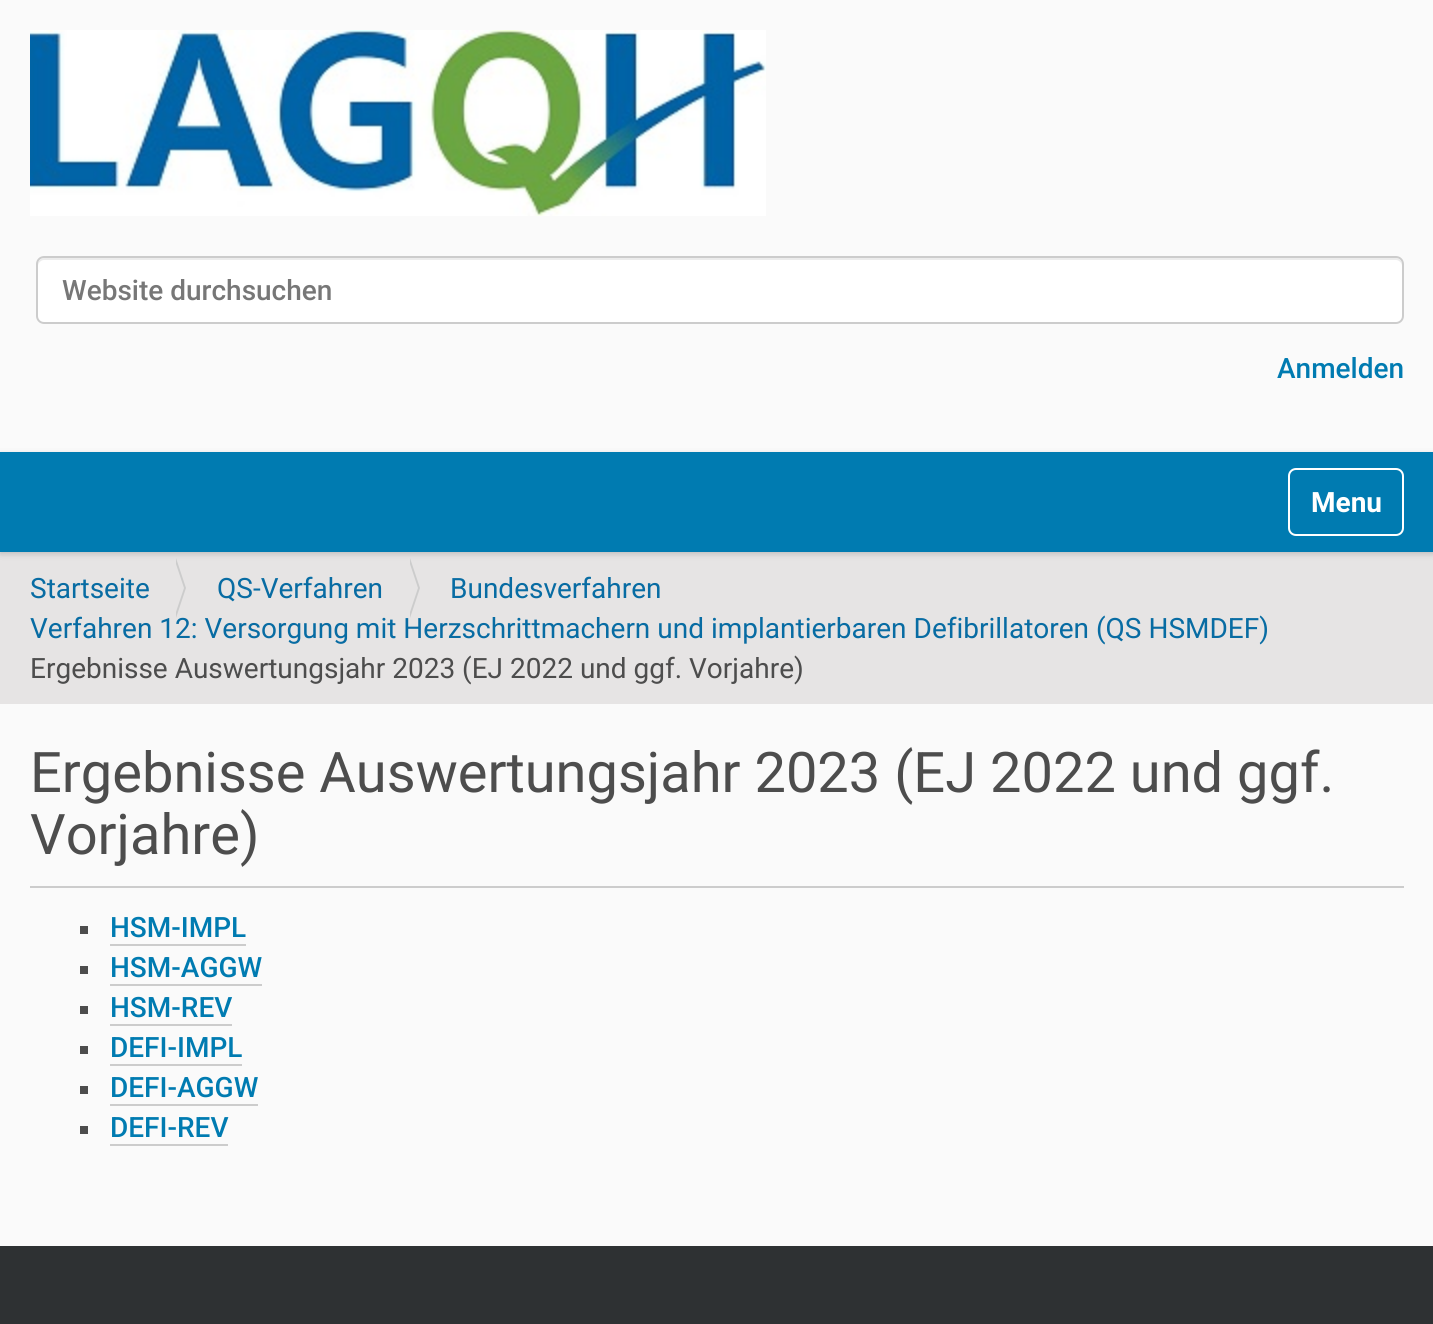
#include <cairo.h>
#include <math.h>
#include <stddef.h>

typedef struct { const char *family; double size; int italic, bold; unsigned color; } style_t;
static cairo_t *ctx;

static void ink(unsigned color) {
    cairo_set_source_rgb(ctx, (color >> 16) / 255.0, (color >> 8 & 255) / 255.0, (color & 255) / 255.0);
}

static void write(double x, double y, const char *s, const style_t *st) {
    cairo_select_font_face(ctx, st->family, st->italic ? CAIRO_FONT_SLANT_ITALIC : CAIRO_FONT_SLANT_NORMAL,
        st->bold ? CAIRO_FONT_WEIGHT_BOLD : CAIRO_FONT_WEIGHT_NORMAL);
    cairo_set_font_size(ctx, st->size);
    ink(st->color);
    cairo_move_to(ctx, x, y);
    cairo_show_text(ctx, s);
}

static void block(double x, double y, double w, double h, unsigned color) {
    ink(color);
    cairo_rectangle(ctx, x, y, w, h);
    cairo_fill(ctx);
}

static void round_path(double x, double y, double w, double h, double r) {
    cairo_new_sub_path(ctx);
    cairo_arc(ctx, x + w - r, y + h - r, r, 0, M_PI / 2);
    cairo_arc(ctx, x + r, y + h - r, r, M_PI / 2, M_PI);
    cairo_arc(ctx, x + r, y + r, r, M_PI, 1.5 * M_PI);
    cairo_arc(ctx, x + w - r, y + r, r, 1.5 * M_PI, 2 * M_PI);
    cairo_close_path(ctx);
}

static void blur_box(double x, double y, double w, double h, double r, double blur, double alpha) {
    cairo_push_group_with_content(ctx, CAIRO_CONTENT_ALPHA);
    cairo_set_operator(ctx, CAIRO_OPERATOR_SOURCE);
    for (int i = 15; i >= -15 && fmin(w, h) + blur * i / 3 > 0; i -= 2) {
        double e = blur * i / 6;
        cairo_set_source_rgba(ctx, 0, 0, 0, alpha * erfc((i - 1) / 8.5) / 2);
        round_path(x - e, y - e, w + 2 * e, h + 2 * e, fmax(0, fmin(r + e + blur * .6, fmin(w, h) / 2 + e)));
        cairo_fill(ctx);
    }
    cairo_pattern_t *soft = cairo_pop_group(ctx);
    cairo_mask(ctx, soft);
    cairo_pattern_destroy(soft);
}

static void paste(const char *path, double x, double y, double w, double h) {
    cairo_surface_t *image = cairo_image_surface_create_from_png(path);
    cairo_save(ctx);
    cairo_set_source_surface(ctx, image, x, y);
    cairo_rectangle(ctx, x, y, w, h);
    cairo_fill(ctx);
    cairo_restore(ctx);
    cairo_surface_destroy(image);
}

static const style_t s1 = {"Roboto Medium", 28, 0, 0, 0x777777};
static const style_t s2 = {"Roboto Medium", 28, 0, 0, 0x007bb1};
static const style_t s3 = {"Roboto", 28, 0, 1, 0xffffff};
static const style_t s4 = {"Roboto", 28, 0, 0, 0x086ca3};
static const style_t s5 = {"Roboto", 28, 0, 0, 0x4d4d4d};
static const style_t s6 = {"Roboto", 56, 0, 0, 0x4d4d4d};

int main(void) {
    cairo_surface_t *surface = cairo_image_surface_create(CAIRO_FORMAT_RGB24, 1433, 1324);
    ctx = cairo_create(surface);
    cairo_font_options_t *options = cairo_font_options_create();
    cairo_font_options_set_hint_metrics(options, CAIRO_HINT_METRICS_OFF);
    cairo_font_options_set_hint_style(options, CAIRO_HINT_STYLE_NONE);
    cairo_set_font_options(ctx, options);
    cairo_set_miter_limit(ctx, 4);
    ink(0xfafafa);
    cairo_paint(ctx);
    paste("pic1.png", 30, 30, 736, 186);
    ink(0xffffff);
    round_path(36, 256, 1368, 68, 8);
    cairo_fill(ctx);
    ink(0xececec);
    cairo_new_path(ctx);
    cairo_move_to(ctx, 44, 260);
    cairo_line_to(ctx, 1396, 260);
    cairo_curve_to(ctx, 1399, 260, 1402, 263, 1402, 266);
    cairo_line_to(ctx, 1402, 264);
    cairo_curve_to(ctx, 1402, 261, 1399, 258, 1396, 258);
    cairo_line_to(ctx, 44, 258);
    cairo_curve_to(ctx, 41, 258, 38, 261, 38, 264);
    cairo_line_to(ctx, 38, 266);
    cairo_curve_to(ctx, 38, 263, 41, 260, 44, 260);
    cairo_close_path(ctx);
    cairo_fill(ctx);
    round_path(37, 257, 1366, 66, 7);
    ink(0xcccccc);
    cairo_stroke(ctx);
    write(62, 300, "Website durchsuchen", &s1);
    write(1277, 378, "Anmelden", &s2);
    block(0, 552, 1433, 152, 0xe6e4e4);
    ink(0x000000);
    blur_box(0, 454, 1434, 100, 0, 3, 0.17);
    block(0, 452, 1433, 100, 0x007bb1);
    round_path(1289, 469, 114, 66, 7);
    ink(0xffffff);
    cairo_stroke(ctx);
    write(1311, 512, "Menu", &s3);
    write(30, 598, "Startseite", &s4);
    ink(0xcccccc);
    cairo_new_path(ctx);
    cairo_move_to(ctx, 176, 618);
    cairo_line_to(ctx, 176, 558);
    cairo_line_to(ctx, 186, 588);
    cairo_close_path(ctx);
    cairo_fill(ctx);
    ink(0xe6e4e4);
    cairo_new_path(ctx);
    cairo_move_to(ctx, 174, 618);
    cairo_line_to(ctx, 174, 558);
    cairo_line_to(ctx, 184, 588);
    cairo_close_path(ctx);
    cairo_fill(ctx);
    write(217, 598, "QS-Verfahren", &s4);
    ink(0xcccccc);
    cairo_new_path(ctx);
    cairo_move_to(ctx, 410, 618);
    cairo_line_to(ctx, 410, 558);
    cairo_line_to(ctx, 420, 588);
    cairo_close_path(ctx);
    cairo_fill(ctx);
    ink(0xe6e4e4);
    cairo_new_path(ctx);
    cairo_move_to(ctx, 408, 618);
    cairo_line_to(ctx, 408, 558);
    cairo_line_to(ctx, 418, 588);
    cairo_close_path(ctx);
    cairo_fill(ctx);
    write(450, 598, "Bundesverfahren", &s4);
    write(30, 638, "Verfahren 12: Versorgung mit Herzschrittmachern und implantierbaren Defibrillatoren (QS HSMDEF)", &s4);
    write(30, 678, "Ergebnisse Auswertungsjahr 2023 (EJ 2022 und ggf. Vorjahre)", &s5);
    block(30, 886, 1374, 2, 0xcccccc);
    write(30, 792, "Ergebnisse Auswertungsjahr 2023 (EJ 2022 und ggf.", &s6);
    write(30, 854, "Vorjahre)", &s6);
    block(80, 926, 8, 8, 0x4d4d4d);
    write(110, 937, "HSM-IMPL", &s2);
    block(110, 944, 136, 2, 0xcccccc);
    block(80, 966, 8, 8, 0x4d4d4d);
    write(110, 977, "HSM-AGGW", &s2);
    block(110, 984, 152, 2, 0xcccccc);
    block(80, 1006, 8, 8, 0x4d4d4d);
    write(110, 1017, "HSM-REV", &s2);
    block(110, 1024, 122, 2, 0xcccccc);
    block(80, 1046, 8, 8, 0x4d4d4d);
    write(110, 1057, "DEFI-IMPL", &s2);
    block(110, 1064, 132, 2, 0xcccccc);
    block(80, 1086, 8, 8, 0x4d4d4d);
    write(110, 1097, "DEFI-AGGW", &s2);
    block(110, 1104, 148, 2, 0xcccccc);
    block(80, 1126, 8, 8, 0x4d4d4d);
    write(110, 1137, "DEFI-REV", &s2);
    block(110, 1144, 118, 2, 0xcccccc);
    block(0, 1246, 1433, 78, 0x2e3133);
    cairo_surface_write_to_png(surface, "screenshot.png");
    cairo_font_options_destroy(options);
    cairo_destroy(ctx);
    cairo_surface_destroy(surface);
    return 0;
}
